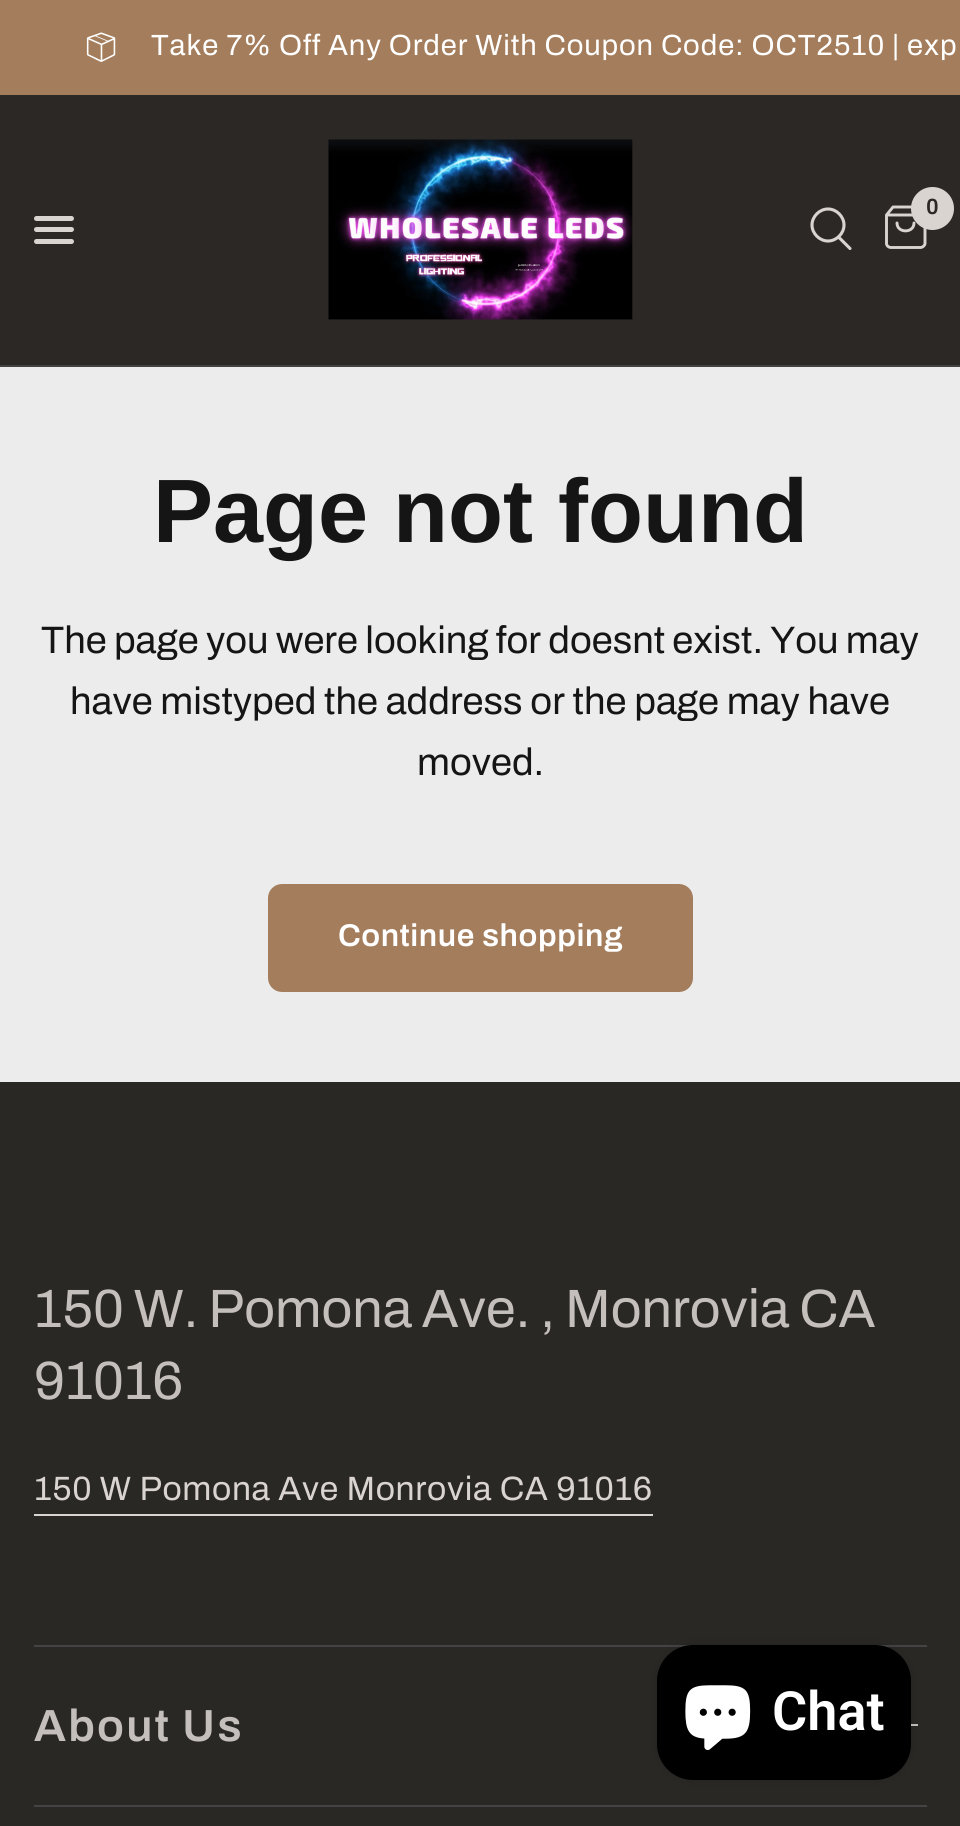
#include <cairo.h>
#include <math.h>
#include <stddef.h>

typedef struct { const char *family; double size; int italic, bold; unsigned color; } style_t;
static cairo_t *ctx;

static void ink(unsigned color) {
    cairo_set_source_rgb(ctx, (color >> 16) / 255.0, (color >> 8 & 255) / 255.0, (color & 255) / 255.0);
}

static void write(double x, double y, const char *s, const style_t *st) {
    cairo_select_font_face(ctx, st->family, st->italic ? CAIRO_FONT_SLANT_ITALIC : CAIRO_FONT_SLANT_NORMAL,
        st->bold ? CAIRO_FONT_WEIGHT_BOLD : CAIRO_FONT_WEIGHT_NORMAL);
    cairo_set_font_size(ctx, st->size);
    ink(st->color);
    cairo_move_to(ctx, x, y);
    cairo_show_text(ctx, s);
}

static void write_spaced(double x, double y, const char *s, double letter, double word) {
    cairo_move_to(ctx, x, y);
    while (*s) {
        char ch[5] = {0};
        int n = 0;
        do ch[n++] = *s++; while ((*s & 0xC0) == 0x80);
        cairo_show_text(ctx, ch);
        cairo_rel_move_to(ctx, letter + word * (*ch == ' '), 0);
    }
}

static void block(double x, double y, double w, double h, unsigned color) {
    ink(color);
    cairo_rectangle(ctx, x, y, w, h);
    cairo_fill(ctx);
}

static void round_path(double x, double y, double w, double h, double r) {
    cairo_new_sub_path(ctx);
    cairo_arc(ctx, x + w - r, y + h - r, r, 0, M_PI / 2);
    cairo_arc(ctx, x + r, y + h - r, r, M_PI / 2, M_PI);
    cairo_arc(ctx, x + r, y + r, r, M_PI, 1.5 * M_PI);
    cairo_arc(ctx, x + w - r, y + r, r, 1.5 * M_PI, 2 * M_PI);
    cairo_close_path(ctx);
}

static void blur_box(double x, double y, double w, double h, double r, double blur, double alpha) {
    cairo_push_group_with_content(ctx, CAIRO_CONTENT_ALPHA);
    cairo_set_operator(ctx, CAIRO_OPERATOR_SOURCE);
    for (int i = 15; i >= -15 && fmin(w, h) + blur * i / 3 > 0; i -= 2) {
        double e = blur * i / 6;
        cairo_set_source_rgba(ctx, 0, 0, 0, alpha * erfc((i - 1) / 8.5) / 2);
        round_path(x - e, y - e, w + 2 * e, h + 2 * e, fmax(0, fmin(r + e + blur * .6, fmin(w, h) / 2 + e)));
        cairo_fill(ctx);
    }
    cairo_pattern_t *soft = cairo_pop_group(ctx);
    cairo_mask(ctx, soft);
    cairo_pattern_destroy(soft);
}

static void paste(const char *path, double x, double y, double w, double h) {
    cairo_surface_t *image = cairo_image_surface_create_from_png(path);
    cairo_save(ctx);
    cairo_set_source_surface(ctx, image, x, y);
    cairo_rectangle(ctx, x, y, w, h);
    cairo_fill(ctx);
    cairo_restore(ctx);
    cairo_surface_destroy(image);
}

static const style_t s1 = {"Archivo SemiBold", 22, 0, 0, 0x2b2825};
static const style_t s2 = {"Arimo", 90, 0, 1, 0x151515};
static const style_t s3 = {"Archivo", 38.25, 0, 0, 0x151515};
static const style_t s4 = {"Archivo", 54, 0, 0, 0xc4bfbb};
static const style_t s5 = {"Roboto SemiBold", 54, 0, 0, 0xffffff};

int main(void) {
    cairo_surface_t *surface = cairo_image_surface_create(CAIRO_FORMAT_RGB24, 960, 1826);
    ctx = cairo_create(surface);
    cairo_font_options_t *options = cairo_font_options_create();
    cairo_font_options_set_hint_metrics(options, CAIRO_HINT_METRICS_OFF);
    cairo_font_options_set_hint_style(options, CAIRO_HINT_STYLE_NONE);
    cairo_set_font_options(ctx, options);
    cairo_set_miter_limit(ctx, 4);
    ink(0xececec);
    cairo_paint(ctx);
    block(0, 0, 960, 95, 0xa47d5c);
    paste("pic1.png", 86, 32, 30, 30);
    cairo_select_font_face(ctx, "Archivo", CAIRO_FONT_SLANT_NORMAL, CAIRO_FONT_WEIGHT_NORMAL);
    cairo_set_font_size(ctx, 29.25);
    ink(0xffffff);
    write_spaced(151, 55, "Take 7% Off Any Order With Coupon Code: OCT2510 | exp", 0.88, 0);
    block(0, 95, 960, 270, 0x2b2825);
    block(0, 365, 960, 2, 0x44423f);
    paste("pic2.png", 328, 139, 305, 181);
    cairo_new_path(ctx);
    cairo_move_to(ctx, 839, 237.5);
    cairo_line_to(ctx, 850, 248.5);
    cairo_move_to(ctx, 844, 225);
    cairo_curve_to(ctx, 844, 233.5, 836.5, 241, 828, 241);
    cairo_curve_to(ctx, 819.5, 241, 812, 233.5, 812, 225);
    cairo_curve_to(ctx, 812, 216.5, 819.5, 209, 828, 209);
    cairo_curve_to(ctx, 836.5, 209, 844, 216.5, 844, 225);
    cairo_close_path(ctx);
    ink(0xdad4d0);
    cairo_set_line_width(ctx, 3.1);
    cairo_set_line_cap(ctx, CAIRO_LINE_CAP_ROUND);
    cairo_set_line_join(ctx, CAIRO_LINE_JOIN_ROUND);
    cairo_stroke(ctx);
    cairo_new_path(ctx);
    cairo_move_to(ctx, 886.5, 215);
    cairo_line_to(ctx, 893, 207);
    cairo_line_to(ctx, 918.5, 207);
    cairo_line_to(ctx, 925, 215);
    cairo_move_to(ctx, 886.5, 215);
    cairo_line_to(ctx, 886.5, 243.5);
    cairo_curve_to(ctx, 886.5, 245.5, 888.5, 247.5, 891, 247.5);
    cairo_line_to(ctx, 920.5, 247.5);
    cairo_curve_to(ctx, 922.5, 247.5, 925, 245.5, 925, 243.5);
    cairo_line_to(ctx, 925, 215);
    cairo_move_to(ctx, 886.5, 215);
    cairo_line_to(ctx, 925, 215);
    cairo_move_to(ctx, 914, 223);
    cairo_curve_to(ctx, 914, 233.5, 897, 233.5, 897, 223);
    cairo_set_line_width(ctx, 2.9);
    cairo_stroke(ctx);
    cairo_arc(ctx, 932.5, 208.5, 21.5, 0, 2 * M_PI);
    cairo_fill(ctx);
    write(926, 214, "0", &s1);
    ink(0xdad4d0);
    round_path(34, 216, 40, 5, 2.5);
    cairo_fill(ctx);
    round_path(34, 227, 40, 5, 2.5);
    cairo_fill(ctx);
    round_path(34, 239, 40, 5, 2.5);
    cairo_fill(ctx);
    write(153, 542, "Page not found", &s2);
    cairo_select_font_face(ctx, "Archivo", CAIRO_FONT_SLANT_NORMAL, CAIRO_FONT_WEIGHT_NORMAL);
    cairo_set_font_size(ctx, 38.25);
    write_spaced(41, 653, "The page you were looking for doesnt exist. You may", 0, -0.75);
    write_spaced(70, 714, "have mistyped the address or the page may have", 0, -0.25);
    write(417, 775, "moved.", &s3);
    ink(0xa47d5c);
    round_path(269, 885, 423, 106, 13);
    cairo_fill_preserve(ctx);
    cairo_set_line_width(ctx, 2);
    cairo_set_line_cap(ctx, CAIRO_LINE_CAP_BUTT);
    cairo_set_line_join(ctx, CAIRO_LINE_JOIN_MITER);
    cairo_stroke(ctx);
    cairo_select_font_face(ctx, "Archivo SemiBold", CAIRO_FONT_SLANT_NORMAL, CAIRO_FONT_WEIGHT_NORMAL);
    cairo_set_font_size(ctx, 31.5);
    ink(0xffffff);
    write_spaced(338, 946, "Continue shopping", 0.6, 0);
    block(0, 1082, 960, 744, 0x2a2825);
    cairo_select_font_face(ctx, "Archivo", CAIRO_FONT_SLANT_NORMAL, CAIRO_FONT_WEIGHT_NORMAL);
    cairo_set_font_size(ctx, 54);
    ink(0xc4bfbb);
    write_spaced(34, 1327, "150 W. Pomona Ave. , Monrovia CA", 0, -1.5);
    write(34, 1399, "91016", &s4);
    cairo_set_font_size(ctx, 33.75);
    ink(0xdad4d0);
    write_spaced(34, 1500, "150 W Pomona Ave Monrovia CA 91016", 0.65, 0);
    block(34, 1514, 619, 2, 0xdad4d0);
    block(34, 1645, 893, 2, 0x444444);
    cairo_select_font_face(ctx, "Archivo SemiBold", CAIRO_FONT_SLANT_NORMAL, CAIRO_FONT_WEIGHT_NORMAL);
    cairo_set_font_size(ctx, 45);
    ink(0xc4bfbb);
    write_spaced(34, 1741, "About Us", 2.25, 0);
    block(911, 1724, 7, 2, 0xc4bfbb);
    block(34, 1805, 893, 2, 0x444444);
    ink(0x000000);
    blur_box(657, 1645, 254, 135, 36, 5.5, 0.15);
    ink(0x000000);
    round_path(657, 1645, 254, 135, 36);
    cairo_fill(ctx);
    paste("pic3.png", 685, 1685, 66, 65);
    write(772, 1730, "Chat", &s5);
    cairo_surface_write_to_png(surface, "screenshot.png");
    cairo_font_options_destroy(options);
    cairo_destroy(ctx);
    cairo_surface_destroy(surface);
    return 0;
}
